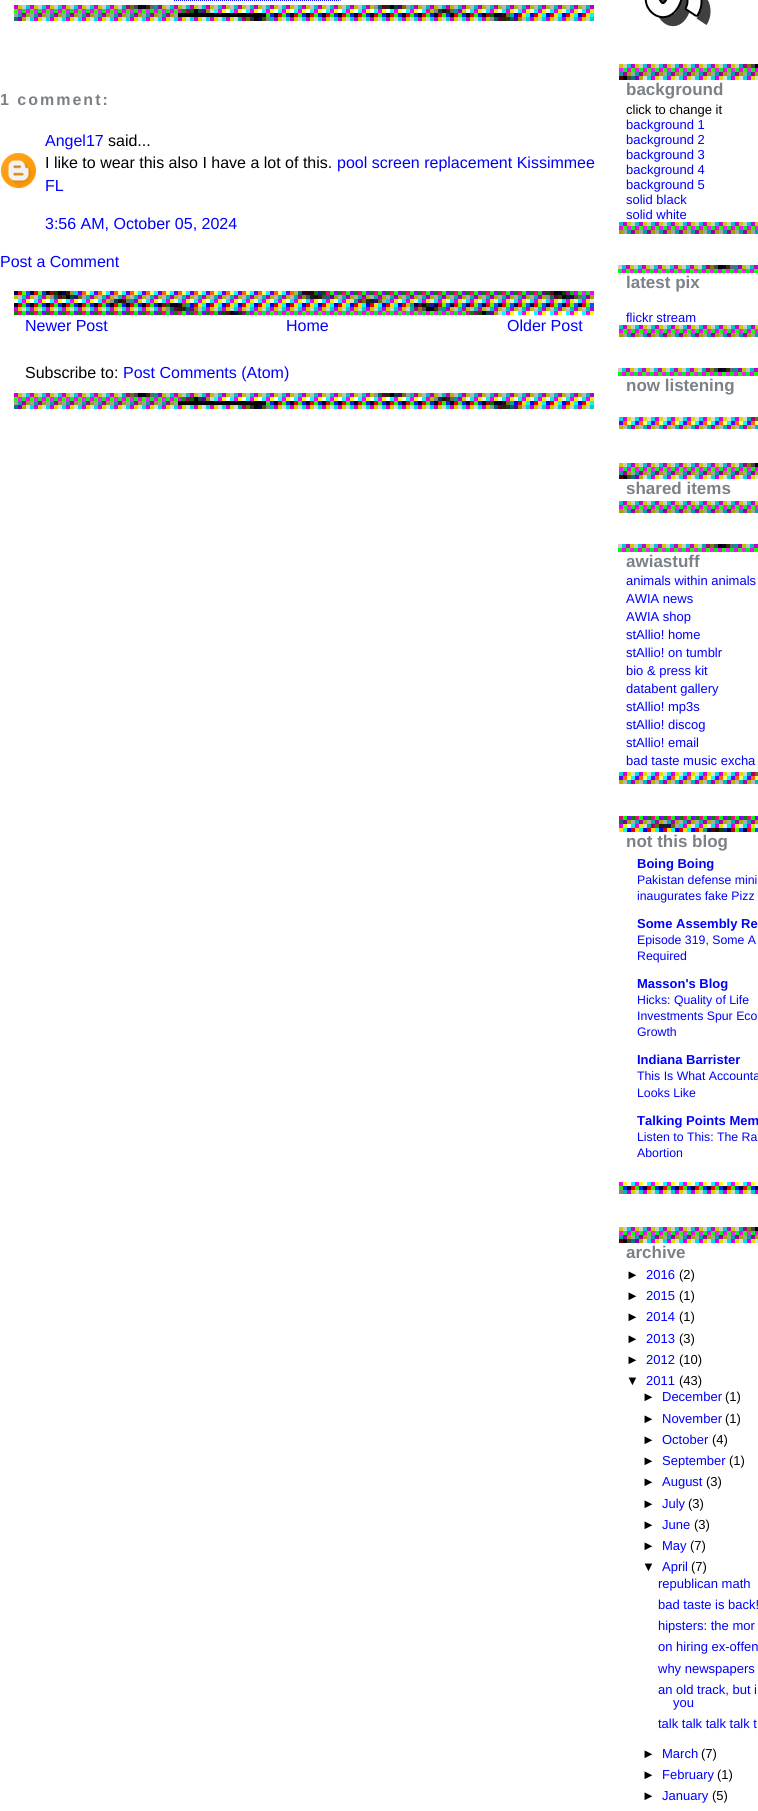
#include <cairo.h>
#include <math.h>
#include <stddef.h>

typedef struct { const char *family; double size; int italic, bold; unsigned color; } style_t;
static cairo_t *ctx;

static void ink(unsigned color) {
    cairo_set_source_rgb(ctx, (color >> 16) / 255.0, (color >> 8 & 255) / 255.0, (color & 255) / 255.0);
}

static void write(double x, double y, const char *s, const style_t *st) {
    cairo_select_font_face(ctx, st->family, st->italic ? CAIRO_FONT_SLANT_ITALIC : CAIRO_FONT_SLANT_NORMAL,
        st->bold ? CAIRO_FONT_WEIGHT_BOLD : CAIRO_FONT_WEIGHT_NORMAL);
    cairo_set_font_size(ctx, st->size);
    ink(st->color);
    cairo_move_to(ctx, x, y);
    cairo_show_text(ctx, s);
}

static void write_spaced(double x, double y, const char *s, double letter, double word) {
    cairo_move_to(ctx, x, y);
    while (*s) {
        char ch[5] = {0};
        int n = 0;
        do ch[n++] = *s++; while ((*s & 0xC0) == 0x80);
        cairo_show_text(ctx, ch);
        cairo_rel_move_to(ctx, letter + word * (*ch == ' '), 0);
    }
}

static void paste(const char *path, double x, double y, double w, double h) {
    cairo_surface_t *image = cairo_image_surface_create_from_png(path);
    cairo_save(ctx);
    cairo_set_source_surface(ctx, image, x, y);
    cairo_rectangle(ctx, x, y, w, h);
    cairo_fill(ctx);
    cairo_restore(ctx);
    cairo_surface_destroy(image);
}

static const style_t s1 = {"Liberation Sans", 16, 0, 0, 0x0000ff};
static const style_t s2 = {"Liberation Sans", 16, 0, 0, 0x000000};
static const style_t s3 = {"Liberation Sans", 17, 0, 1, 0x7b8186};
static const style_t s4 = {"Liberation Sans", 13, 0, 0, 0x000000};
static const style_t s5 = {"Liberation Sans", 13, 0, 0, 0x0000ff};
static const style_t s6 = {"Liberation Sans", 13, 0, 1, 0x0000ff};
static const style_t s7 = {"Liberation Sans", 12.3, 0, 0, 0x0000ff};

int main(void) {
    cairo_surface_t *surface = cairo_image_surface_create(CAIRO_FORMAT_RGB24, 758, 1811);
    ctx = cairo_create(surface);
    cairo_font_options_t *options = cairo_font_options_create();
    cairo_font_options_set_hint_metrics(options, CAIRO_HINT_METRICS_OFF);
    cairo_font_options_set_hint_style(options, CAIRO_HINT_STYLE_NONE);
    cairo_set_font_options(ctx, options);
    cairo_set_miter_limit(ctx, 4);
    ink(0xffffff);
    cairo_paint(ctx);
    cairo_new_path(ctx);
    cairo_move_to(ctx, 174, 0.5);
    cairo_line_to(ctx, 340.5, 0.5);
    ink(0x0000ff);
    cairo_set_line_width(ctx, 1);
    cairo_set_dash(ctx, (double[]){1, 1}, 2, 0);
    cairo_stroke(ctx);
    paste("pic1.png", 14, 5, 580, 16);
    cairo_select_font_face(ctx, "Liberation Sans", CAIRO_FONT_SLANT_NORMAL, CAIRO_FONT_WEIGHT_BOLD);
    cairo_set_font_size(ctx, 16);
    ink(0x7b8186);
    write_spaced(0, 105, "1 comment:", 2, 0);
    write(45, 146, "Angel17", &s1);
    write(108, 146, "said...", &s2);
    paste("pic2.png", 1, 153, 35, 35);
    write(45, 168, "I like to wear this also I have a lot of this.", &s2);
    write(337, 168, "pool screen replacement Kissimmee", &s1);
    write(45, 191, "FL", &s1);
    write(45, 229, "3:56 AM, October 05, 2024", &s1);
    write(0, 267, "Post a Comment", &s1);
    paste("pic3.png", 14, 291, 580, 24);
    write(25, 331, "Newer Post", &s1);
    write(286, 331, "Home", &s1);
    write(507, 331, "Older Post", &s1);
    write(25, 378, "Subscribe to:", &s2);
    write(123, 378, "Post Comments (Atom)", &s1);
    paste("pic1.png", 14, 393, 580, 16);
    paste("pic4.png", 644, 0, 67, 27);
    paste("pic5.png", 619, 64, 139, 16);
    write(626, 95, "background", &s3);
    write(626, 114, "click to change it", &s4);
    write(626, 129, "background 1", &s5);
    write(626, 144, "background 2", &s5);
    write(626, 159, "background 3", &s5);
    write(626, 174, "background 4", &s5);
    write(626, 189, "background 5", &s5);
    write(626, 204, "solid black", &s5);
    write(626, 219, "solid white", &s5);
    paste("pic6.png", 619, 222, 139, 12);
    paste("pic7.png", 618, 265, 140, 8);
    write(626, 288, "latest pix", &s3);
    write(626, 322, "flickr stream", &s5);
    paste("pic6.png", 619, 325, 139, 12);
    paste("pic7.png", 618, 368, 140, 8);
    write(626, 391, "now listening", &s3);
    paste("pic8.png", 619, 417, 139, 12);
    paste("pic5.png", 619, 463, 139, 16);
    write(626, 494, "shared items", &s3);
    paste("pic6.png", 619, 501, 139, 12);
    paste("pic7.png", 618, 544, 140, 8);
    write(626, 567, "awiastuff", &s3);
    write(626, 585, "animals within animals", &s5);
    write(626, 603, "AWIA news", &s5);
    write(626, 621, "AWIA shop", &s5);
    write(626, 639, "stAllio! home", &s5);
    write(626, 657, "stAllio! on tumblr", &s5);
    write(626, 675, "bio & press kit", &s5);
    write(626, 693, "databent gallery", &s5);
    write(626, 711, "stAllio! mp3s", &s5);
    write(626, 729, "stAllio! discog", &s5);
    write(626, 747, "stAllio! email", &s5);
    write(626, 765, "bad taste music excha", &s5);
    paste("pic8.png", 619, 772, 139, 12);
    paste("pic9.png", 619, 816, 139, 16);
    write(626, 847, "not this blog", &s3);
    write(637, 868, "Boing Boing", &s6);
    write(637, 884, "Pakistan defense mini", &s7);
    write(637, 900, "inaugurates fake Pizz", &s7);
    write(637, 928, "Some Assembly Re", &s6);
    write(637, 944, "Episode 319, Some A", &s7);
    write(637, 960, "Required", &s7);
    write(637, 988, "Masson's Blog", &s6);
    write(637, 1004, "Hicks: Quality of Life", &s7);
    write(637, 1020, "Investments Spur Eco", &s7);
    write(637, 1036, "Growth", &s7);
    write(637, 1064, "Indiana Barrister", &s6);
    write(637, 1080, "This Is What Accounta", &s7);
    write(637, 1097, "Looks Like", &s7);
    write(637, 1125, "Talking Points Mem", &s6);
    write(637, 1141, "Listen to This: The Ra", &s7);
    write(637, 1157, "Abortion", &s7);
    paste("pic10.png", 619, 1182, 139, 12);
    paste("pic5.png", 619, 1227, 139, 16);
    write(626, 1258, "archive", &s3);
    write(626, 1279, "►", &s4);
    write(646, 1279, "2016", &s5);
    write(679, 1279, "(2)", &s4);
    write(626, 1300, "►", &s4);
    write(646, 1300, "2015", &s5);
    write(679, 1300, "(1)", &s4);
    write(626, 1321, "►", &s4);
    write(646, 1321, "2014", &s5);
    write(679, 1321, "(1)", &s4);
    write(626, 1343, "►", &s4);
    write(646, 1343, "2013", &s5);
    write(679, 1343, "(3)", &s4);
    write(626, 1364, "►", &s4);
    write(646, 1364, "2012", &s5);
    write(679, 1364, "(10)", &s4);
    write(626, 1385, "▼", &s4);
    write(646, 1385, "2011", &s5);
    write(679, 1385, "(43)", &s4);
    write(642, 1401, "►", &s4);
    write(662, 1401, "December", &s5);
    write(725, 1401, "(1)", &s4);
    write(642, 1423, "►", &s4);
    write(662, 1423, "November", &s5);
    write(725, 1423, "(1)", &s4);
    write(642, 1444, "►", &s4);
    write(662, 1444, "October", &s5);
    write(712, 1444, "(4)", &s4);
    write(642, 1465, "►", &s4);
    write(662, 1465, "September", &s5);
    write(729, 1465, "(1)", &s4);
    write(642, 1486, "►", &s4);
    write(662, 1486, "August", &s5);
    write(706, 1486, "(3)", &s4);
    write(642, 1508, "►", &s4);
    write(662, 1508, "July", &s5);
    write(688, 1508, "(3)", &s4);
    write(642, 1529, "►", &s4);
    write(662, 1529, "June", &s5);
    write(694, 1529, "(3)", &s4);
    write(642, 1550, "►", &s4);
    write(662, 1550, "May", &s5);
    write(690, 1550, "(7)", &s4);
    write(642, 1571, "▼", &s4);
    write(662, 1571, "April", &s5);
    write(691, 1571, "(7)", &s4);
    write(658, 1588, "republican math", &s5);
    write(658, 1609, "bad taste is back!", &s5);
    write(658, 1630, "hipsters: the mor", &s5);
    write(658, 1651, "on hiring ex-offen", &s5);
    write(658, 1673, "why newspapers", &s5);
    write(658, 1694, "an old track, but i", &s5);
    write(673, 1707, "you", &s5);
    write(658, 1728, "talk talk talk talk t", &s5);
    write(642, 1758, "►", &s4);
    write(662, 1758, "March", &s5);
    write(701, 1758, "(7)", &s4);
    write(642, 1779, "►", &s4);
    write(662, 1779, "February", &s5);
    write(717, 1779, "(1)", &s4);
    write(642, 1800, "►", &s4);
    write(662, 1800, "January", &s5);
    write(712, 1800, "(5)", &s4);
    cairo_surface_write_to_png(surface, "screenshot.png");
    cairo_font_options_destroy(options);
    cairo_destroy(ctx);
    cairo_surface_destroy(surface);
    return 0;
}
